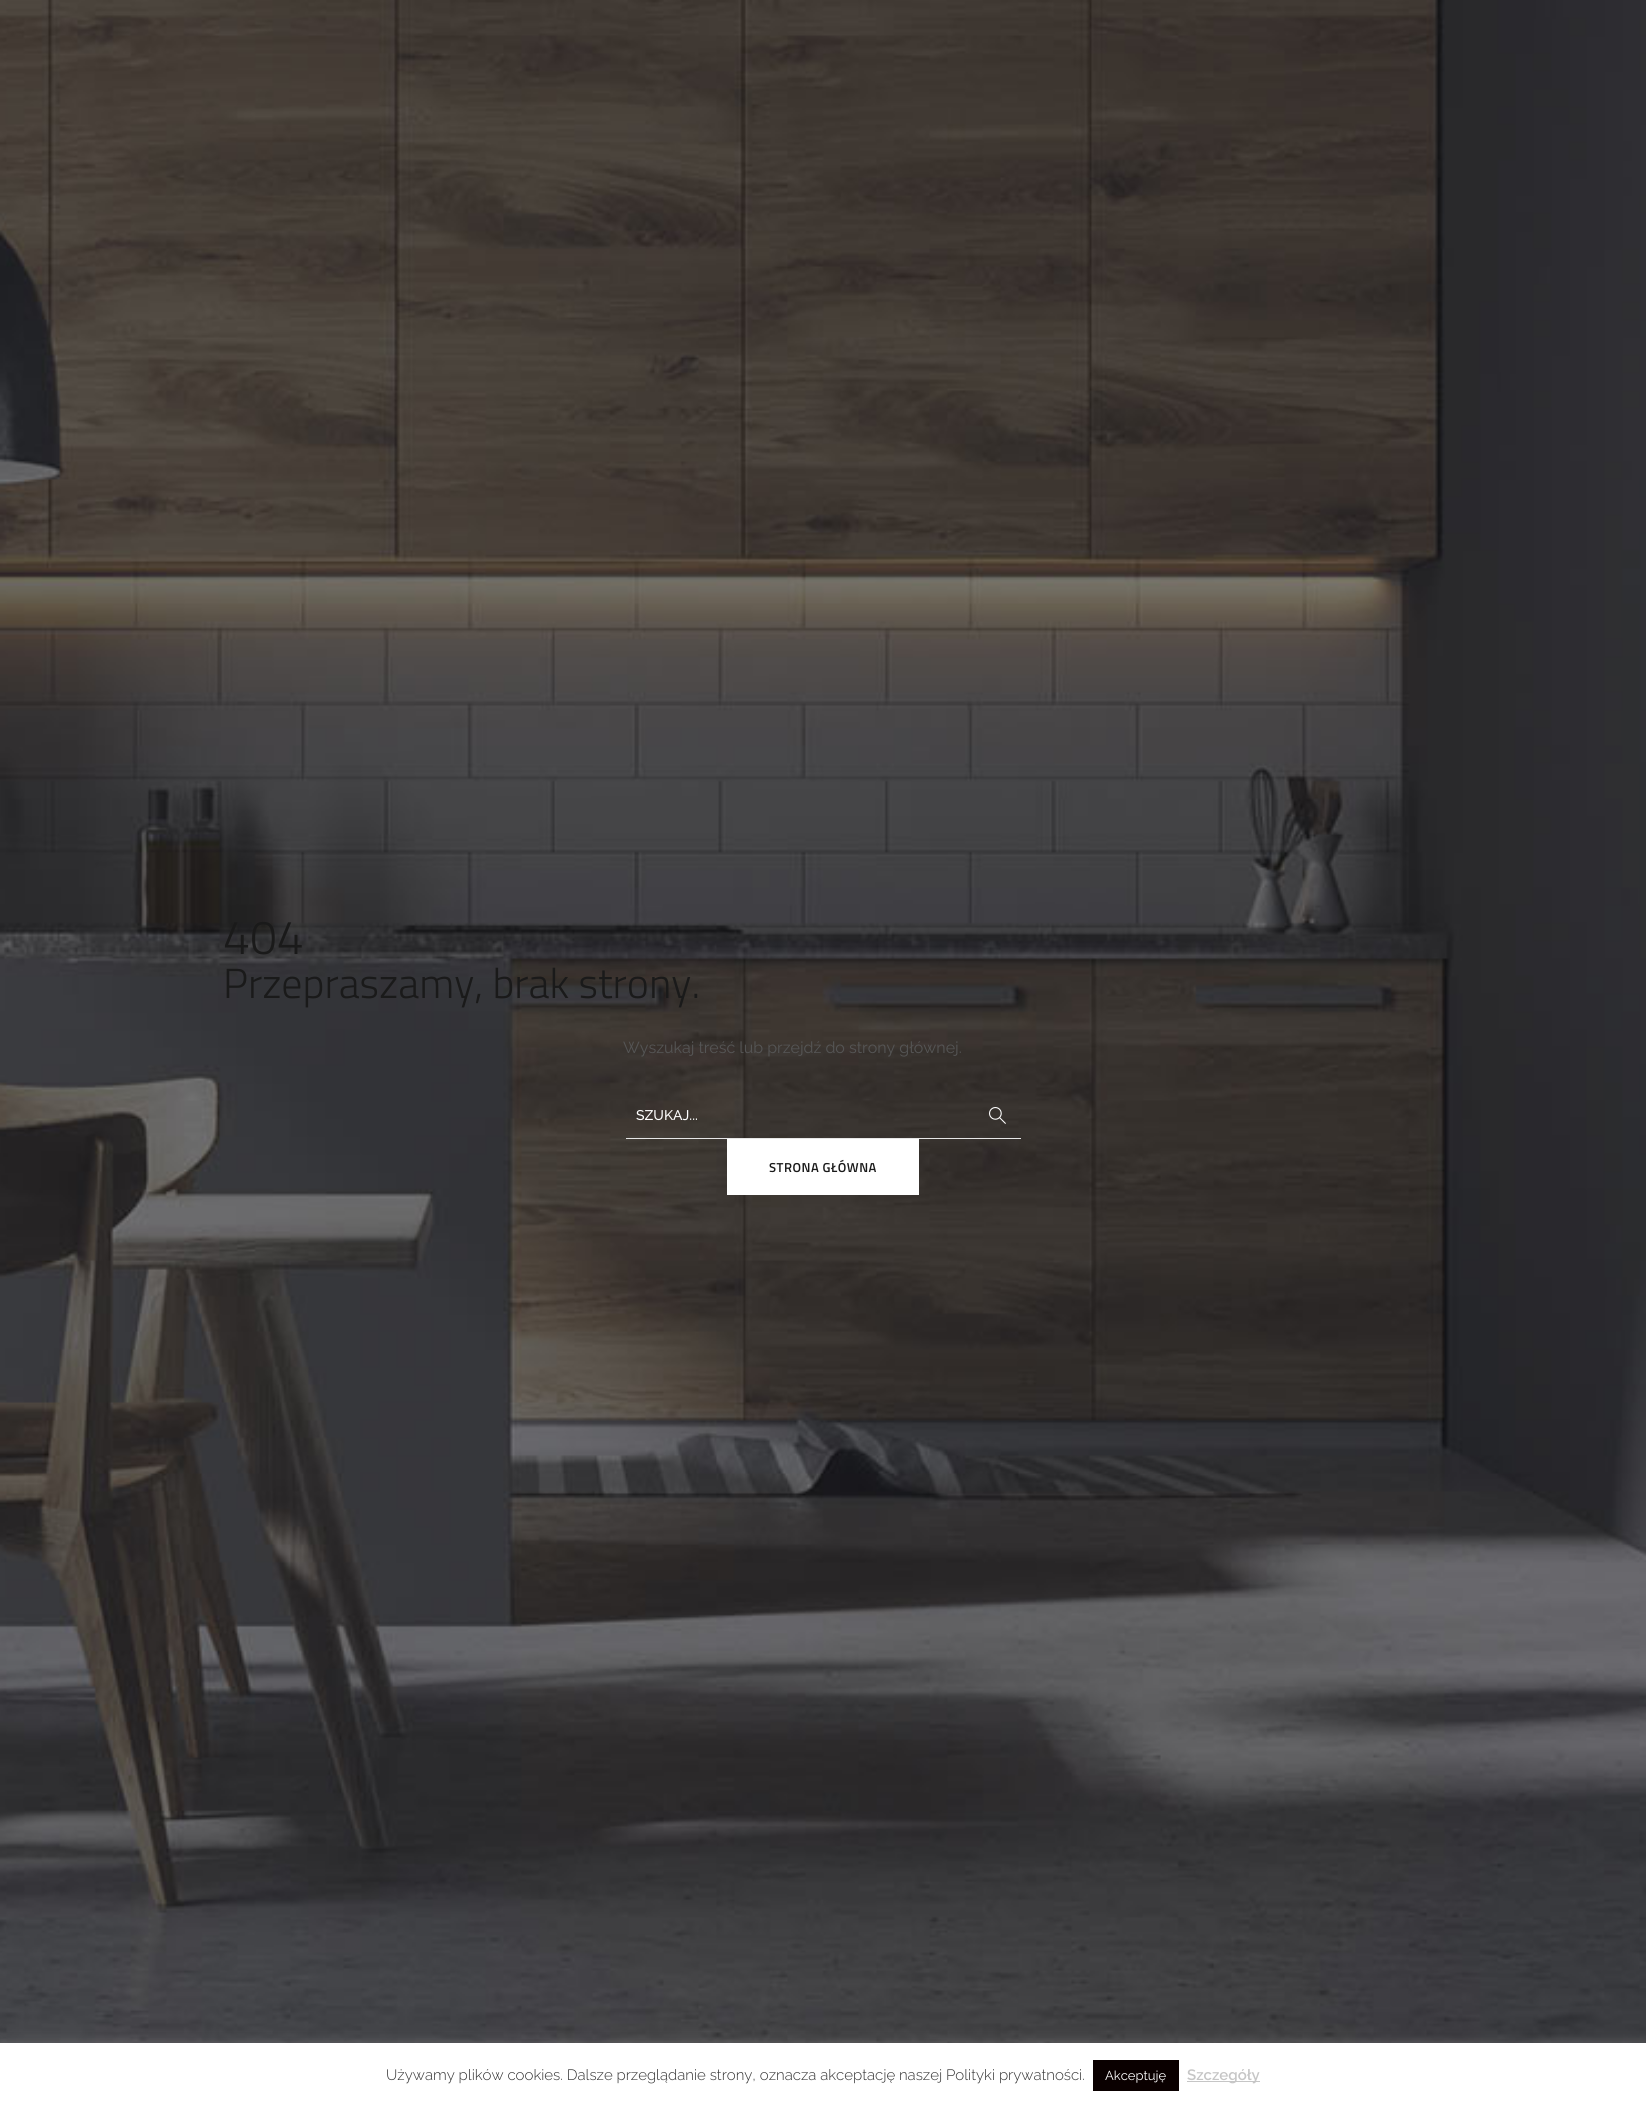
#include <cairo.h>
#include <math.h>
#include <stddef.h>

typedef struct { const char *family; double size; int italic, bold; unsigned color; } style_t;
static cairo_t *ctx;

static void ink(unsigned color) {
    cairo_set_source_rgb(ctx, (color >> 16) / 255.0, (color >> 8 & 255) / 255.0, (color & 255) / 255.0);
}

static void write(double x, double y, const char *s, const style_t *st) {
    cairo_select_font_face(ctx, st->family, st->italic ? CAIRO_FONT_SLANT_ITALIC : CAIRO_FONT_SLANT_NORMAL,
        st->bold ? CAIRO_FONT_WEIGHT_BOLD : CAIRO_FONT_WEIGHT_NORMAL);
    cairo_set_font_size(ctx, st->size);
    ink(st->color);
    cairo_move_to(ctx, x, y);
    cairo_show_text(ctx, s);
}

static void write_spaced(double x, double y, const char *s, double letter, double word) {
    cairo_move_to(ctx, x, y);
    while (*s) {
        char ch[5] = {0};
        int n = 0;
        do ch[n++] = *s++; while ((*s & 0xC0) == 0x80);
        cairo_show_text(ctx, ch);
        cairo_rel_move_to(ctx, letter + word * (*ch == ' '), 0);
    }
}

static void block(double x, double y, double w, double h, unsigned color) {
    ink(color);
    cairo_rectangle(ctx, x, y, w, h);
    cairo_fill(ctx);
}

static void round_path(double x, double y, double w, double h, double r) {
    cairo_new_sub_path(ctx);
    cairo_arc(ctx, x + w - r, y + h - r, r, 0, M_PI / 2);
    cairo_arc(ctx, x + r, y + h - r, r, M_PI / 2, M_PI);
    cairo_arc(ctx, x + r, y + r, r, M_PI, 1.5 * M_PI);
    cairo_arc(ctx, x + w - r, y + r, r, 1.5 * M_PI, 2 * M_PI);
    cairo_close_path(ctx);
}

static void blur_box(double x, double y, double w, double h, double r, double blur, double alpha) {
    cairo_push_group_with_content(ctx, CAIRO_CONTENT_ALPHA);
    cairo_set_operator(ctx, CAIRO_OPERATOR_SOURCE);
    for (int i = 15; i >= -15 && fmin(w, h) + blur * i / 3 > 0; i -= 2) {
        double e = blur * i / 6;
        cairo_set_source_rgba(ctx, 0, 0, 0, alpha * erfc((i - 1) / 8.5) / 2);
        round_path(x - e, y - e, w + 2 * e, h + 2 * e, fmax(0, fmin(r + e + blur * .6, fmin(w, h) / 2 + e)));
        cairo_fill(ctx);
    }
    cairo_pattern_t *soft = cairo_pop_group(ctx);
    cairo_mask(ctx, soft);
    cairo_pattern_destroy(soft);
}

static void paste(const char *path, double x, double y, double w, double h) {
    cairo_surface_t *image = cairo_image_surface_create_from_png(path);
    cairo_save(ctx);
    cairo_set_source_surface(ctx, image, x, y);
    cairo_rectangle(ctx, x, y, w, h);
    cairo_fill(ctx);
    cairo_restore(ctx);
    cairo_surface_destroy(image);
}

static const style_t s1 = {"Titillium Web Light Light", 48, 0, 0, 0x1a1a1a};
static const style_t s2 = {"Titillium Web Light Light", 42, 0, 0, 0x1a1a1a};
static const style_t s3 = {"Raleway", 16, 0, 0, 0x555555};
static const style_t s4 = {"Raleway Medium", 14, 0, 0, 0xffffff};
static const style_t s5 = {"Raleway Light", 15, 0, 0, 0x333333};
static const style_t s6 = {"Raleway", 13, 0, 0, 0xffffff};
static const style_t s7 = {"Raleway SemiBold", 15, 0, 0, 0xc6c6c6};

int main(void) {
    cairo_surface_t *surface = cairo_image_surface_create(CAIRO_FORMAT_RGB24, 1646, 2108);
    ctx = cairo_create(surface);
    cairo_font_options_t *options = cairo_font_options_create();
    cairo_font_options_set_hint_metrics(options, CAIRO_HINT_METRICS_OFF);
    cairo_font_options_set_hint_style(options, CAIRO_HINT_STYLE_NONE);
    cairo_set_font_options(ctx, options);
    cairo_set_miter_limit(ctx, 4);
    ink(0xffffff);
    cairo_paint(ctx);
    paste("pic1.png", 0, 0, 1646, 2043);
    write(223, 954, "404", &s1);
    write(223, 998, "Przepraszamy, brak strony.", &s2);
    write(623, 1053, "Wyszukaj treść lub przejdź do strony głównej.", &s3);
    block(626, 1138, 395, 1, 0xe6e6e6);
    write(636, 1120, "SZUKAJ...", &s4);
    paste("pic2.png", 989, 1107, 17, 17);
    block(727, 1139, 192, 56, 0xffffff);
    cairo_select_font_face(ctx, "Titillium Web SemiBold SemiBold", CAIRO_FONT_SLANT_NORMAL, CAIRO_FONT_WEIGHT_NORMAL);
    cairo_set_font_size(ctx, 13);
    ink(0x1a1a1a);
    write_spaced(769, 1172, "STRONA GŁÓWNA", 0.5, 0);
    ink(0xacabab);
    blur_box(0, 2042, 1646, 65, 0, 5, 0.3);
    block(0, 2043, 1646, 65, 0xffffff);
    write(386, 2080, "Używamy plików cookies. Dalsze przeglądanie strony, oznacza akceptację naszej Polityki prywatności.", &s5);
    block(1093, 2060, 86, 31, 0x0a0000);
    write(1105, 2080, "Akceptuję", &s6);
    block(1187, 2081, 73, 1, 0xc6c6c6);
    write(1187, 2080, "Szczegóły", &s7);
    cairo_surface_write_to_png(surface, "screenshot.png");
    cairo_font_options_destroy(options);
    cairo_destroy(ctx);
    cairo_surface_destroy(surface);
    return 0;
}
